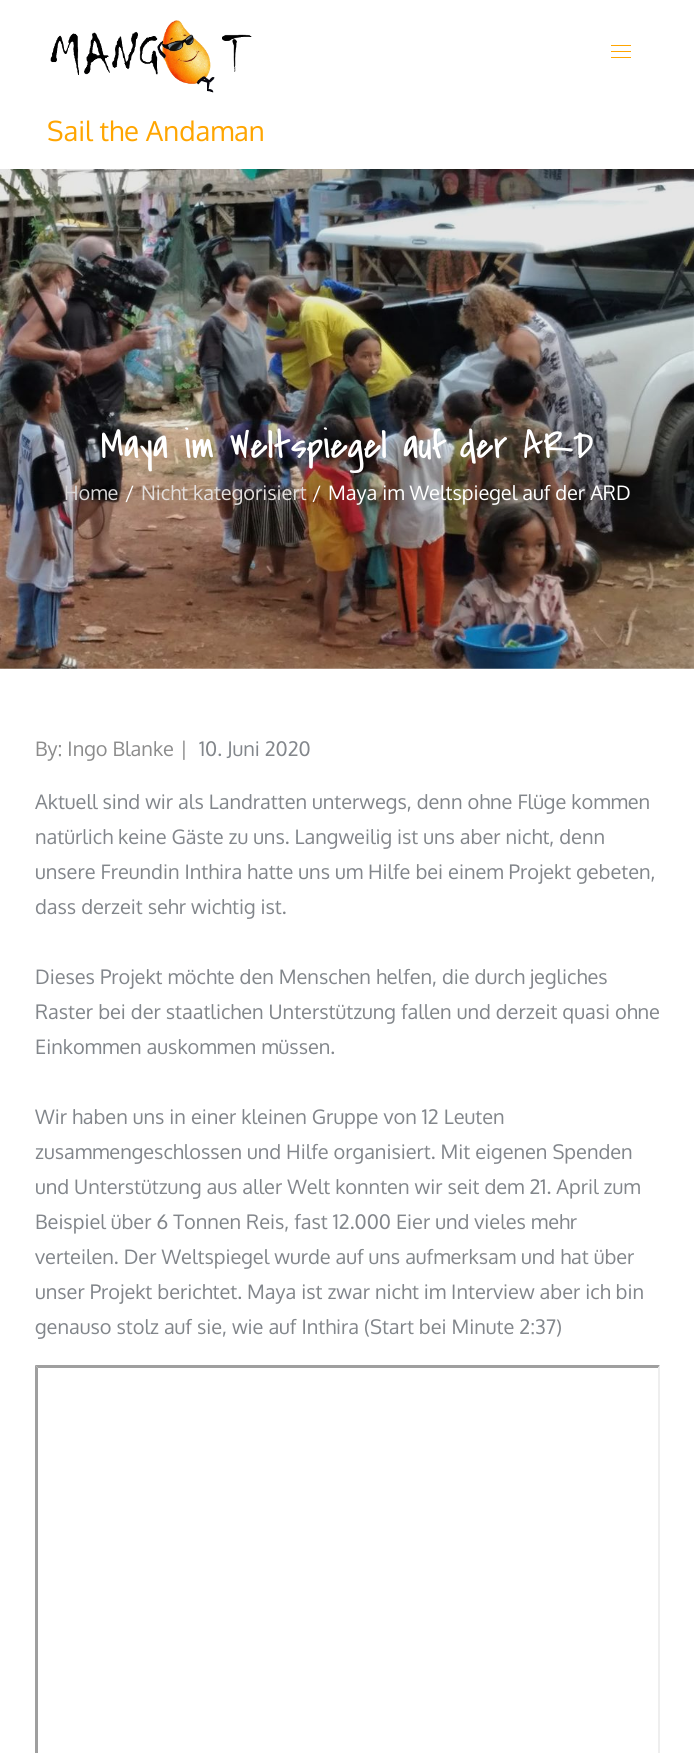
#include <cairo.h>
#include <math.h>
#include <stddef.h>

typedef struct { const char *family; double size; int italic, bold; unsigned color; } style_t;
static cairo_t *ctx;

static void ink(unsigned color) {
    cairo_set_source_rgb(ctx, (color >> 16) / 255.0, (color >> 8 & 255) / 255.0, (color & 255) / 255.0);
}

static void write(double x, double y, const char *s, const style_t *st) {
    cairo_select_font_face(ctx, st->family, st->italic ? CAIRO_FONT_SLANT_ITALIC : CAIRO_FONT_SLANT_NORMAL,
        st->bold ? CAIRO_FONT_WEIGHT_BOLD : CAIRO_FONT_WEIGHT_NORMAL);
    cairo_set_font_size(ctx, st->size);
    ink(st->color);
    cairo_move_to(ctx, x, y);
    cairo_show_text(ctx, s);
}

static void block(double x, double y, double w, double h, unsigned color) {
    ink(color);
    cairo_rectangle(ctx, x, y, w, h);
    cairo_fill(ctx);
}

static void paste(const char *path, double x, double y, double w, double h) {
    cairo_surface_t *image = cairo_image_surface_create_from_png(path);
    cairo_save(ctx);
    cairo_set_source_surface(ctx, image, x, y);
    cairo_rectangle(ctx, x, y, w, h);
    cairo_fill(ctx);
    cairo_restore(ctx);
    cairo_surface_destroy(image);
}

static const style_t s1 = {"Oxygen", 27.5, 0, 0, 0xffa500};
static const style_t s2 = {"Covered By Your Grace", 40, 0, 0, 0xffffff};
static const style_t s3 = {"Oxygen", 20, 0, 0, 0xd9d7d7};
static const style_t s4 = {"Oxygen", 20, 0, 0, 0xffffff};
static const style_t s5 = {"Oxygen", 20, 0, 0, 0xe3dedc};
static const style_t s6 = {"Oxygen", 20, 0, 0, 0x8c8c8c};
static const style_t s7 = {"Oxygen", 20, 0, 0, 0x82868b};

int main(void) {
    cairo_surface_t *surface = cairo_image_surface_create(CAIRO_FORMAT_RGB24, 694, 1753);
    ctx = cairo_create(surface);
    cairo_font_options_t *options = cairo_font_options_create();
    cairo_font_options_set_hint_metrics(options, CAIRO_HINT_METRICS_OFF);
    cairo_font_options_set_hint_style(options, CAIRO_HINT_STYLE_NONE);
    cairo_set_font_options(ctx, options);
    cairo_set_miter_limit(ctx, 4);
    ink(0xffffff);
    cairo_paint(ctx);
    block(611, 45, 20, 1, 0xffa500);
    block(611, 51, 20, 1, 0xffa500);
    block(611, 57, 20, 1, 0xffa500);
    paste("pic1.png", 50, 20, 202, 73);
    write(47, 141, "Sail the Andaman", &s1);
    paste("pic2.png", 0, 169, 694, 500);
    write(101, 458, "Maya im Weltspiegel auf der ARD", &s2);
    write(64, 500, "Home", &s3);
    write(125, 500, "/", &s4);
    write(141, 500, "Nicht kategorisiert", &s5);
    write(312, 500, "/", &s4);
    write(328, 500, "Maya im Weltspiegel auf der ARD", &s4);
    write(35, 756, "By: Ingo Blanke", &s6);
    write(180, 756, "|", &s6);
    write(199, 756, "10. Juni 2020", &s7);
    write(35, 809, "Aktuell sind wir als Landratten unterwegs, denn ohne Flüge kommen", &s7);
    write(35, 844, "natürlich keine Gäste zu uns. Langweilig ist uns aber nicht, denn", &s7);
    write(35, 879, "unsere Freundin Inthira hatte uns um Hilfe bei einem Projekt gebeten,", &s7);
    write(35, 914, "dass derzeit sehr wichtig ist.", &s7);
    write(35, 984, "Dieses Projekt möchte den Menschen helfen, die durch jegliches", &s7);
    write(35, 1019, "Raster bei der staatlichen Unterstützung fallen und derzeit quasi ohne", &s7);
    write(35, 1054, "Einkommen auskommen müssen.", &s7);
    write(35, 1124, "Wir haben uns in einer kleinen Gruppe von 12 Leuten", &s7);
    write(35, 1159, "zusammengeschlossen und Hilfe organisiert. Mit eigenen Spenden", &s7);
    write(35, 1194, "und Unterstützung aus aller Welt konnten wir seit dem 21. April zum", &s7);
    write(35, 1229, "Beispiel über 6 Tonnen Reis, fast 12.000 Eier und vieles mehr", &s7);
    write(35, 1264, "verteilen. Der Weltspiegel wurde auf uns aufmerksam und hat über", &s7);
    write(35, 1299, "unser Projekt berichtet. Maya ist zwar nicht im Interview aber ich bin", &s7);
    write(35, 1334, "genauso stolz auf sie, wie auf Inthira (Start bei Minute 2:37)", &s7);
    ink(0x9f9f9f);
    cairo_new_path(ctx);
    cairo_move_to(ctx, 35, 1365);
    cairo_line_to(ctx, 660, 1365);
    cairo_line_to(ctx, 658, 1368);
    cairo_line_to(ctx, 38, 1368);
    cairo_close_path(ctx);
    cairo_fill(ctx);
    cairo_new_path(ctx);
    cairo_move_to(ctx, 35, 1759);
    cairo_line_to(ctx, 35, 1365);
    cairo_line_to(ctx, 38, 1368);
    cairo_line_to(ctx, 38, 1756);
    cairo_close_path(ctx);
    cairo_fill(ctx);
    ink(0xeeeeee);
    cairo_new_path(ctx);
    cairo_move_to(ctx, 660, 1365);
    cairo_line_to(ctx, 660, 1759);
    cairo_line_to(ctx, 658, 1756);
    cairo_line_to(ctx, 658, 1368);
    cairo_close_path(ctx);
    cairo_fill(ctx);
    cairo_surface_write_to_png(surface, "screenshot.png");
    cairo_font_options_destroy(options);
    cairo_destroy(ctx);
    cairo_surface_destroy(surface);
    return 0;
}
